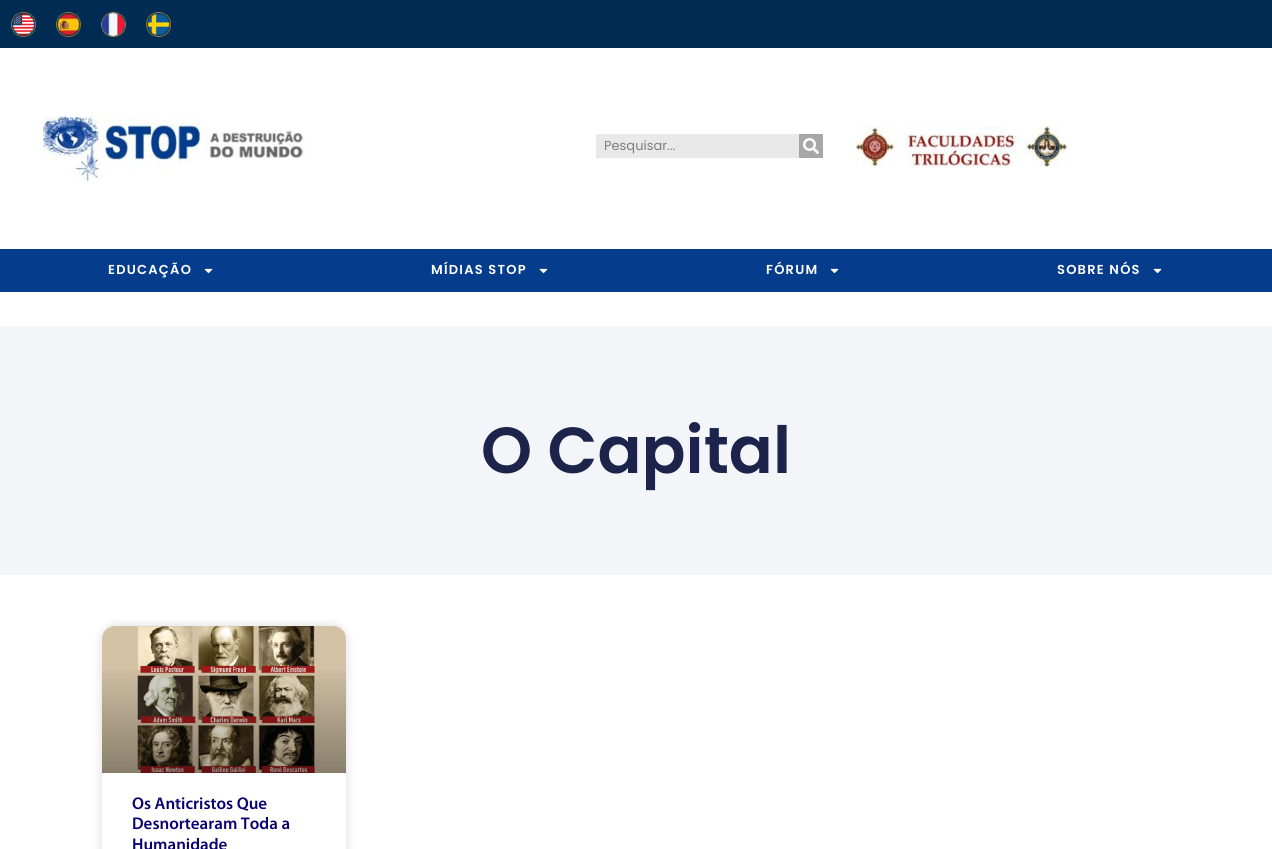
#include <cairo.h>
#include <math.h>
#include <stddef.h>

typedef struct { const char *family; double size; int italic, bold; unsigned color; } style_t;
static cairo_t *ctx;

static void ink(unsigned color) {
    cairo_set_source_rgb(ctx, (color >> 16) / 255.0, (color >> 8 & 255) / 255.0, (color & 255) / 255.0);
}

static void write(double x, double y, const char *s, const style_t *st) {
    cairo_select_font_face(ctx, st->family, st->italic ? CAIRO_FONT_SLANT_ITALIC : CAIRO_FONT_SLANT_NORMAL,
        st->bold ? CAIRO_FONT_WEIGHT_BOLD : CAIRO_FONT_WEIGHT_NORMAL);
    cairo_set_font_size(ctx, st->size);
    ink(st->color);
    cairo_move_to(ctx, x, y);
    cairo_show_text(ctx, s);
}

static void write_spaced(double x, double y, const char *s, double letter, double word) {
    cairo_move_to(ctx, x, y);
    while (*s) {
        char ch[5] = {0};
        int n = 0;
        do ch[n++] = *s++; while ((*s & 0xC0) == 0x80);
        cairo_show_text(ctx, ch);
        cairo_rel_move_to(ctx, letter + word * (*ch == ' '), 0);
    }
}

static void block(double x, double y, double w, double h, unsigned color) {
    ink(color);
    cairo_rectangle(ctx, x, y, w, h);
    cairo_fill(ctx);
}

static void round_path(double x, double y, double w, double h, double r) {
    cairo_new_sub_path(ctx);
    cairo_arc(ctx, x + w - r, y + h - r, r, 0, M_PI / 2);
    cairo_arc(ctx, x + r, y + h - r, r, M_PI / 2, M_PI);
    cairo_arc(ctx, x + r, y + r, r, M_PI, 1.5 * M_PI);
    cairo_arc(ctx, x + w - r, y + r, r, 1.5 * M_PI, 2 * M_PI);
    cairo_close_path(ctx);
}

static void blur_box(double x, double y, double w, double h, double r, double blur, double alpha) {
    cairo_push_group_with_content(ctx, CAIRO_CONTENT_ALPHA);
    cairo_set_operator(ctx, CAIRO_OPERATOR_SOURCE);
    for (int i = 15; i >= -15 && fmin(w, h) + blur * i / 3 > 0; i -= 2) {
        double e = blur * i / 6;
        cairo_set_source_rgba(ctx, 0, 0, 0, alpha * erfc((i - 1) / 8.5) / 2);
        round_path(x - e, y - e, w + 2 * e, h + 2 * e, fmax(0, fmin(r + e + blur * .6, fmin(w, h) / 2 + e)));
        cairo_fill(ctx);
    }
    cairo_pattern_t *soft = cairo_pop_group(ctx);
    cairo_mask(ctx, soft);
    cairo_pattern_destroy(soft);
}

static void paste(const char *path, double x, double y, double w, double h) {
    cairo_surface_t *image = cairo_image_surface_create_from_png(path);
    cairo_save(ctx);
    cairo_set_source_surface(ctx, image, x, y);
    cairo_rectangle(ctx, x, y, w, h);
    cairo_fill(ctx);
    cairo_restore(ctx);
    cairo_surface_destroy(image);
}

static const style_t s1 = {"Poppins", 13, 0, 0, 0x7e7e7f};
static const style_t s2 = {"Poppins SemiBold", 65, 0, 0, 0x1c244b};
static const style_t s3 = {"Myriad SemiBold", 17, 0, 0, 0x0b0272};

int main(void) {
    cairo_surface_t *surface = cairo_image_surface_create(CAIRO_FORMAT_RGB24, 1272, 849);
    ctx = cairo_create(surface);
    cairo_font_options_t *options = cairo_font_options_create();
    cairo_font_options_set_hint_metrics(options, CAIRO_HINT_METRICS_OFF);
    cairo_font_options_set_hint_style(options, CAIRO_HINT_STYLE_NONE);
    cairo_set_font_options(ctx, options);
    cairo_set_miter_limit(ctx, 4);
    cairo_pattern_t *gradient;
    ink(0xffffff);
    cairo_paint(ctx);
    block(0, 0, 1272, 48, 0x002b52);
    paste("pic1.png", 11, 12, 25, 25);
    paste("pic2.png", 56, 12, 25, 25);
    paste("pic3.png", 101, 12, 25, 25);
    paste("pic4.png", 146, 12, 25, 25);
    paste("pic5.png", 43, 116, 262, 66);
    block(596, 134, 203, 24, 0xe9e9e9);
    write(604, 150, "Pesquisar...", &s1);
    block(799, 134, 24, 24, 0xa7a7a7);
    paste("pic6.png", 803, 138, 16, 16);
    paste("pic7.png", 856, 126, 212, 41);
    block(0, 249, 1272, 43, 0x063c8c);
    cairo_select_font_face(ctx, "Poppins SemiBold", CAIRO_FONT_SLANT_NORMAL, CAIRO_FONT_WEIGHT_NORMAL);
    ink(0xffffff);
    write_spaced(108, 274, "EDUCAÇÃO", 1.25, 0);
    paste("pic8.png", 204, 268, 9, 6);
    write_spaced(431, 274, "MÍDIAS STOP", 1.25, 0);
    paste("pic8.png", 539, 268, 9, 6);
    write_spaced(766, 274, "FÓRUM", 1.25, 0);
    paste("pic8.png", 830, 268, 9, 6);
    write_spaced(1057, 274, "SOBRE NÓS", 1.25, 0);
    paste("pic8.png", 1153, 268, 9, 6);
    block(0, 326, 1272, 249, 0xf3f5f8);
    write(481, 473, "O Capital", &s2);
    ink(0x000000);
    blur_box(102, 626, 244, 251, 13, 5, 0.15);
    ink(0xffffff);
    round_path(102, 626, 244, 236, 13);
    cairo_fill(ctx);
    paste("pic9.png", 102, 626, 244, 147);
    gradient = cairo_pattern_create_linear(224, 773, 224, 626);
    cairo_pattern_add_color_stop_rgba(gradient, 0, 0, 0, 0, 0.35);
    cairo_pattern_add_color_stop_rgba(gradient, 0.75, 0, 0, 0, 0);
    cairo_set_source(ctx, gradient);
    cairo_pattern_destroy(gradient);
    cairo_rectangle(ctx, 102, 670, 244, 103);
    cairo_fill(ctx);
    write(132, 809, "Os Anticristos Que", &s3);
    write(132, 829, "Desnortearam Toda a", &s3);
    write(132, 850, "Humanidade", &s3);
    cairo_surface_write_to_png(surface, "screenshot.png");
    cairo_font_options_destroy(options);
    cairo_destroy(ctx);
    cairo_surface_destroy(surface);
    return 0;
}
